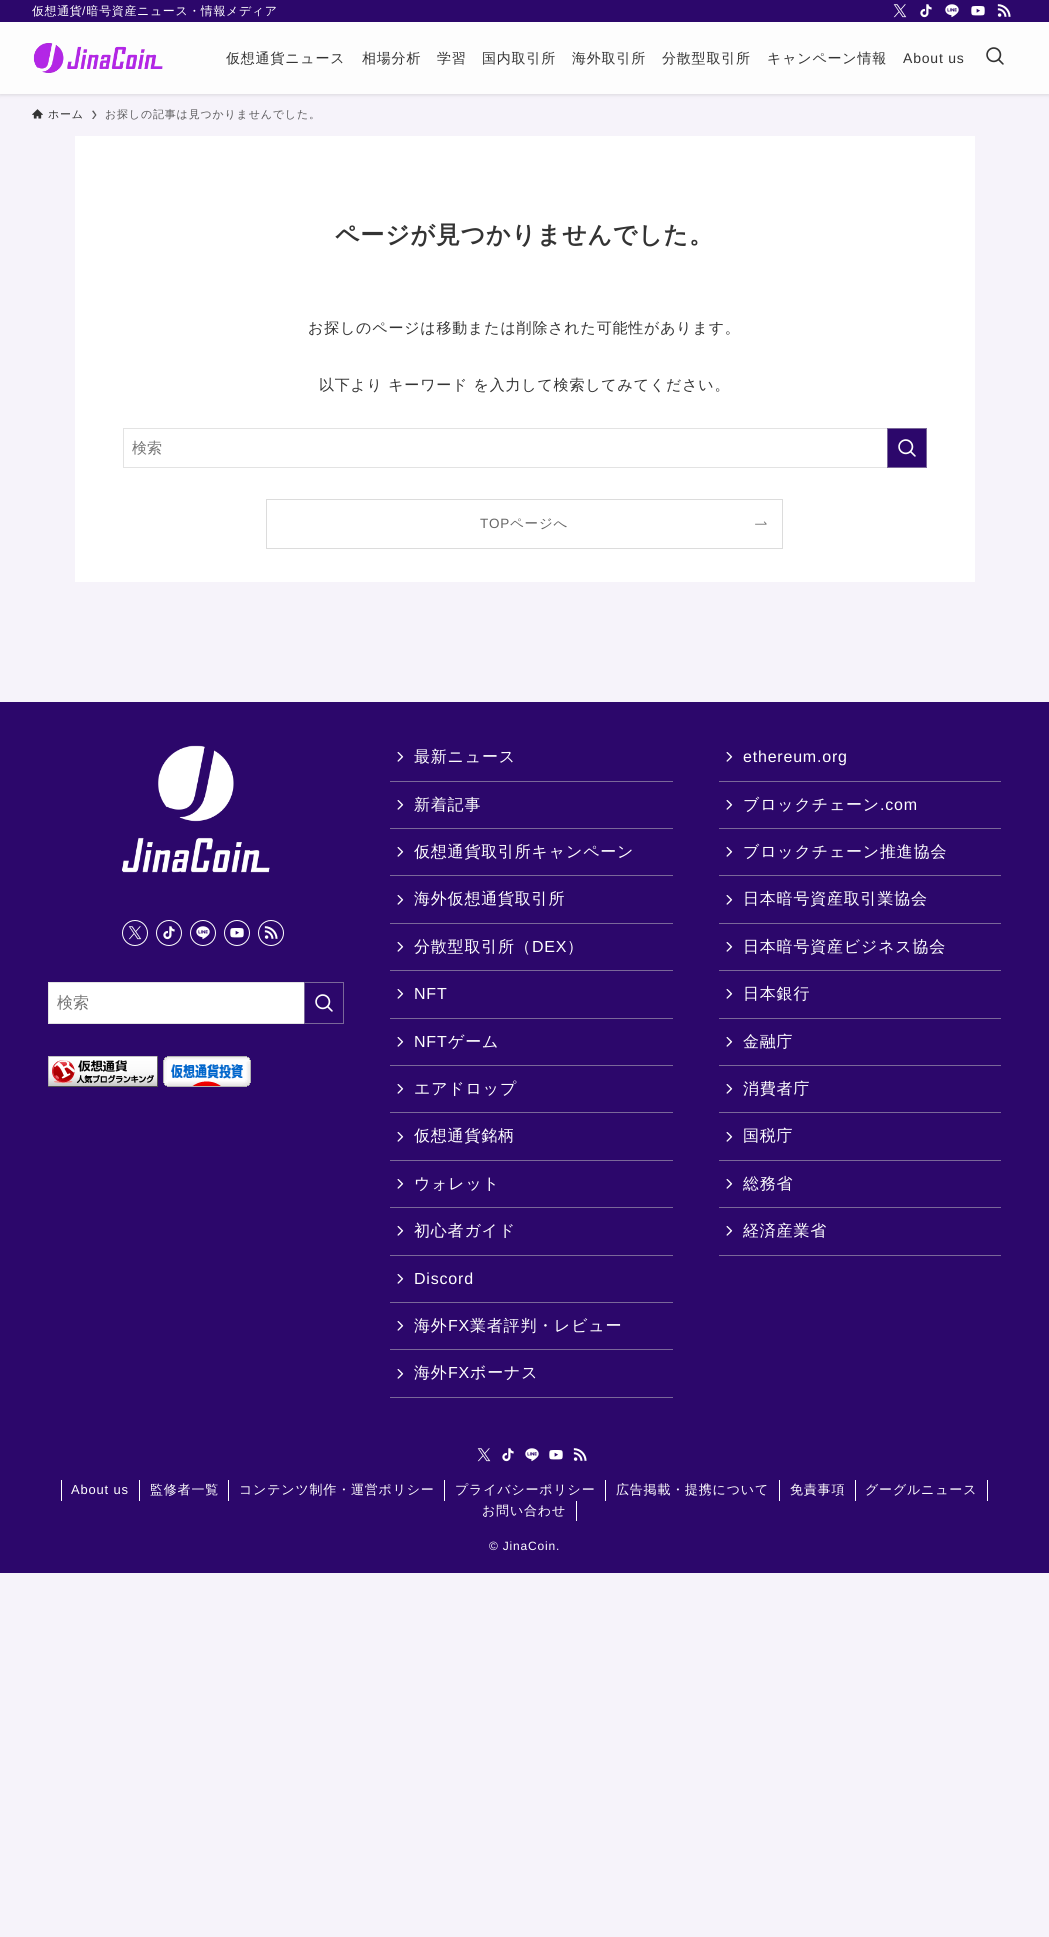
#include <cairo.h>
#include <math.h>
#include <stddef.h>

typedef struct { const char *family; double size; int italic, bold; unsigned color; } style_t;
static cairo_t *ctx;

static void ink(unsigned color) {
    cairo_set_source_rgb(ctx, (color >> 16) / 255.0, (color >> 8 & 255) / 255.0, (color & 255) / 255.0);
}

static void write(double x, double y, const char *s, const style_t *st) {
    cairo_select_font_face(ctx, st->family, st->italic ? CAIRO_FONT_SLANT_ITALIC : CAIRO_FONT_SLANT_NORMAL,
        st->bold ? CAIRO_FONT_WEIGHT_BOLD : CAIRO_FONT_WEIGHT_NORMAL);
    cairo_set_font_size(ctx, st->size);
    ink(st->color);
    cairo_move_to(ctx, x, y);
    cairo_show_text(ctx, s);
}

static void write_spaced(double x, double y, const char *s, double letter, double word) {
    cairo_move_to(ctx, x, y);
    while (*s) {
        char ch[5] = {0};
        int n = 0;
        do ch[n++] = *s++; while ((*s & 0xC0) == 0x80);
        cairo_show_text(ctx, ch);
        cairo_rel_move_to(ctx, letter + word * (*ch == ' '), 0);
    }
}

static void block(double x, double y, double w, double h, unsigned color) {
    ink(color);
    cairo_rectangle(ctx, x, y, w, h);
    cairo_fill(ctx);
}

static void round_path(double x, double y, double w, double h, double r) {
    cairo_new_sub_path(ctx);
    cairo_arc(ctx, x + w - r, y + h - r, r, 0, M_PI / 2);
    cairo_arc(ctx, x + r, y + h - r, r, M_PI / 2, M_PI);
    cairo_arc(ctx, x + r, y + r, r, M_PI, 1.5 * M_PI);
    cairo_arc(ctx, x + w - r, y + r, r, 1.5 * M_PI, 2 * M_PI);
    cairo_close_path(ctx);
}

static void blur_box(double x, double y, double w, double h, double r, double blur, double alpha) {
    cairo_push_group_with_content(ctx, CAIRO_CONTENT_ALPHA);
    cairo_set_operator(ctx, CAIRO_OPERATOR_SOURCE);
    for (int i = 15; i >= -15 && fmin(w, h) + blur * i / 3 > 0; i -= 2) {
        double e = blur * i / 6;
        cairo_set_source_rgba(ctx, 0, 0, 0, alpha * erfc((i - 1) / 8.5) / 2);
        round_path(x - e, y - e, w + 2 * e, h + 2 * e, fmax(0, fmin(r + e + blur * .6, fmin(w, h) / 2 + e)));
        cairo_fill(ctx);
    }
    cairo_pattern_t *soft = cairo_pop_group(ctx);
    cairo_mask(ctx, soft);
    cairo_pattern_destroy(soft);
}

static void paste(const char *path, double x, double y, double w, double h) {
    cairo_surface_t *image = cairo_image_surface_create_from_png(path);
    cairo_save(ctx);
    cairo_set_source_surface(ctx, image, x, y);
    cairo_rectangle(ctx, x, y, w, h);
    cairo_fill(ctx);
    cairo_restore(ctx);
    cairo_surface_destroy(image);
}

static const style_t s1 = {"WenQuanYi Zen Hei Medium", 15, 0, 0, 0x757575};
static const style_t s2 = {"WenQuanYi Zen Hei Medium", 16, 0, 0, 0x757575};

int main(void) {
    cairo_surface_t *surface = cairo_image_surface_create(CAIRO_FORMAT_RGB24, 1049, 1937);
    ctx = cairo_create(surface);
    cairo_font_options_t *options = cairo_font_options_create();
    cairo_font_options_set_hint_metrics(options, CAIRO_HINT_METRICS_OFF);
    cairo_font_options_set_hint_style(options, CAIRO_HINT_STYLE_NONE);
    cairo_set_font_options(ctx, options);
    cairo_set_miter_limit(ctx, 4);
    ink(0xf6f3fa);
    cairo_paint(ctx);
    ink(0x000000);
    blur_box(0, 1, 1049, 94, 0, 2, 0.12);
    block(0, 22, 1049, 72, 0xfdfdfd);
    block(0, 0, 1049, 22, 0x2c076b);
    cairo_select_font_face(ctx, "WenQuanYi Zen Hei Medium", CAIRO_FONT_SLANT_NORMAL, CAIRO_FONT_WEIGHT_NORMAL);
    cairo_set_font_size(ctx, 12);
    ink(0xffffff);
    write_spaced(32, 15, "仮想通貨 暗号資産ニュース・情報メディア", 0.6, 0);
    cairo_select_font_face(ctx, "Liberation Sans", CAIRO_FONT_SLANT_NORMAL, CAIRO_FONT_WEIGHT_NORMAL);
    write_spaced(82, 15, "/", 0.6, 0);
    paste("pic1.png", 893, 4, 14, 14);
    paste("pic2.png", 920, 4, 12, 14);
    paste("pic3.png", 945, 4, 14, 14);
    paste("pic4.png", 971, 6, 14, 10);
    paste("pic5.png", 997, 4, 14, 13);
    paste("pic6.png", 33, 43, 130, 30);
    cairo_select_font_face(ctx, "WenQuanYi Zen Hei Medium", CAIRO_FONT_SLANT_NORMAL, CAIRO_FONT_WEIGHT_NORMAL);
    cairo_set_font_size(ctx, 14);
    ink(0x333333);
    write_spaced(226, 63, "仮想通貨ニュース", 0.8, 0);
    write_spaced(362, 63, "相場分析", 0.8, 0);
    write_spaced(437, 63, "学習", 0.8, 0);
    write_spaced(482, 63, "国内取引所", 0.8, 0);
    write_spaced(572, 63, "海外取引所", 0.8, 0);
    write_spaced(662, 63, "分散型取引所", 0.8, 0);
    write_spaced(767, 63, "キャンペーン情報", 0.8, 0);
    cairo_select_font_face(ctx, "Liberation Sans", CAIRO_FONT_SLANT_NORMAL, CAIRO_FONT_WEIGHT_NORMAL);
    write_spaced(903, 63, "About us", 0.8, 0);
    paste("pic7.png", 986, 47, 18, 18);
    paste("pic8.png", 32, 109, 11, 10);
    cairo_select_font_face(ctx, "WenQuanYi Zen Hei Medium", CAIRO_FONT_SLANT_NORMAL, CAIRO_FONT_WEIGHT_NORMAL);
    cairo_set_font_size(ctx, 11);
    write_spaced(48, 118, "ホーム", 0.8, 0);
    ink(0x5a595b);
    cairo_new_path(ctx);
    cairo_move_to(ctx, 93.5, 110.5);
    cairo_line_to(ctx, 92, 111);
    cairo_line_to(ctx, 95, 115);
    cairo_line_to(ctx, 92, 119);
    cairo_line_to(ctx, 93.5, 119);
    cairo_line_to(ctx, 96.5, 115);
    cairo_close_path(ctx);
    cairo_fill(ctx);
    write_spaced(105, 118, "お探しの記事は見つかりませんでした。", 0.8, 0);
    block(75, 136, 900, 446, 0xffffff);
    cairo_select_font_face(ctx, "WenQuanYi Zen Hei", CAIRO_FONT_SLANT_NORMAL, CAIRO_FONT_WEIGHT_BOLD);
    cairo_set_font_size(ctx, 24);
    ink(0x333333);
    write_spaced(335, 243, "ページが見つかりませんでした。", 0.8, 0);
    cairo_select_font_face(ctx, "WenQuanYi Zen Hei Medium", CAIRO_FONT_SLANT_NORMAL, CAIRO_FONT_WEIGHT_NORMAL);
    cairo_set_font_size(ctx, 15);
    write_spaced(308, 333, "お探しのページは移動または削除された可能性があります。", 0.8, 0);
    write_spaced(319, 390, "以下より キーワード を入力して検索してみてください。", 0.8, 0);
    cairo_rectangle(ctx, 123.5, 428.5, 803, 39);
    ink(0xe3e3e3);
    cairo_set_line_width(ctx, 1);
    cairo_stroke(ctx);
    write(132, 453, "検索", &s1);
    ink(0x2c076b);
    cairo_rectangle(ctx, 887.5, 428.5, 39, 39);
    cairo_fill_preserve(ctx);
    ink(0x7a6799);
    cairo_stroke(ctx);
    paste("pic9.png", 898, 439, 18, 18);
    cairo_rectangle(ctx, 266.5, 499.5, 516, 49);
    ink(0xdcdcdc);
    cairo_stroke(ctx);
    cairo_select_font_face(ctx, "Liberation Sans", CAIRO_FONT_SLANT_NORMAL, CAIRO_FONT_WEIGHT_NORMAL);
    cairo_set_font_size(ctx, 13.5);
    ink(0x666666);
    write_spaced(480, 528, "TOP", 0.8, 0);
    cairo_select_font_face(ctx, "WenQuanYi Zen Hei Medium", CAIRO_FONT_SLANT_NORMAL, CAIRO_FONT_WEIGHT_NORMAL);
    write_spaced(510, 528, "ページへ", 0.8, 0);
    paste("pic10.png", 755, 521, 12, 4);
    block(0, 702, 1049, 871, 0x2c076b);
    paste("pic11.png", 122, 745, 148, 128);
    cairo_arc(ctx, 135, 933, 12.5, 0, 2 * M_PI);
    ink(0xffffff);
    cairo_stroke(ctx);
    paste("pic1.png", 128, 926, 14, 14);
    cairo_arc(ctx, 169, 933, 12.5, 0, 2 * M_PI);
    cairo_stroke(ctx);
    paste("pic2.png", 163, 926, 12, 14);
    cairo_arc(ctx, 203, 933, 12.5, 0, 2 * M_PI);
    cairo_stroke(ctx);
    paste("pic3.png", 196, 926, 14, 14);
    cairo_arc(ctx, 237, 933, 12.5, 0, 2 * M_PI);
    cairo_stroke(ctx);
    paste("pic4.png", 230, 928, 14, 10);
    cairo_arc(ctx, 271, 933, 12.5, 0, 2 * M_PI);
    cairo_stroke(ctx);
    paste("pic5.png", 264, 926, 14, 13);
    block(49, 983, 255, 40, 0xffffff);
    cairo_rectangle(ctx, 48.5, 982.5, 295, 41);
    ink(0xe3e3e3);
    cairo_stroke(ctx);
    write(57, 1008, "検索", &s2);
    cairo_rectangle(ctx, 304.5, 982.5, 39, 41);
    ink(0x7a6799);
    cairo_stroke(ctx);
    paste("pic9.png", 315, 994, 18, 18);
    paste("pic12.png", 48, 1056, 110, 31);
    paste("pic13.png", 163, 1056, 88, 31);
    block(390, 781, 283, 1, 0x7a6799);
    paste("pic14.png", 397, 752, 7, 10);
    ink(0xffffff);
    write_spaced(414, 762, "最新ニュース", 0.8, 0);
    block(390, 828, 283, 1, 0x7a6799);
    paste("pic14.png", 397, 800, 7, 10);
    ink(0xffffff);
    write_spaced(414, 810, "新着記事", 0.8, 0);
    block(390, 875, 283, 1, 0x7a6799);
    paste("pic14.png", 397, 847, 7, 10);
    ink(0xffffff);
    write_spaced(414, 857, "仮想通貨取引所キャンペーン", 0.8, 0);
    block(390, 923, 283, 1, 0x7a6799);
    paste("pic14.png", 397, 895, 7, 10);
    ink(0xffffff);
    write_spaced(414, 904, "海外仮想通貨取引所", 0.8, 0);
    block(390, 970, 283, 1, 0x7a6799);
    paste("pic14.png", 397, 942, 7, 10);
    ink(0xffffff);
    write_spaced(414, 952, "分散型取引所（", 0.8, 0);
    cairo_select_font_face(ctx, "Liberation Sans", CAIRO_FONT_SLANT_NORMAL, CAIRO_FONT_WEIGHT_NORMAL);
    write_spaced(532, 952, "DEX", 0.8, 0);
    cairo_select_font_face(ctx, "WenQuanYi Zen Hei Medium", CAIRO_FONT_SLANT_NORMAL, CAIRO_FONT_WEIGHT_NORMAL);
    write_spaced(567, 952, "）", 0.8, 0);
    block(390, 1018, 283, 1, 0x7a6799);
    paste("pic14.png", 397, 989, 7, 10);
    cairo_select_font_face(ctx, "Liberation Sans", CAIRO_FONT_SLANT_NORMAL, CAIRO_FONT_WEIGHT_NORMAL);
    ink(0xffffff);
    write_spaced(414, 999, "NFT", 0.8, 0);
    block(390, 1065, 283, 1, 0x7a6799);
    paste("pic14.png", 397, 1037, 7, 10);
    ink(0xffffff);
    write_spaced(414, 1047, "NFT", 0.8, 0);
    cairo_select_font_face(ctx, "WenQuanYi Zen Hei Medium", CAIRO_FONT_SLANT_NORMAL, CAIRO_FONT_WEIGHT_NORMAL);
    write_spaced(448, 1047, "ゲーム", 0.8, 0);
    block(390, 1112, 283, 1, 0x7a6799);
    paste("pic14.png", 397, 1084, 7, 10);
    ink(0xffffff);
    write_spaced(414, 1094, "エアドロップ", 0.8, 0);
    block(390, 1160, 283, 1, 0x7a6799);
    paste("pic14.png", 397, 1132, 7, 10);
    ink(0xffffff);
    write_spaced(414, 1141, "仮想通貨銘柄", 0.8, 0);
    block(390, 1207, 283, 1, 0x7a6799);
    paste("pic14.png", 397, 1179, 7, 10);
    ink(0xffffff);
    write_spaced(414, 1189, "ウォレット", 0.8, 0);
    block(390, 1255, 283, 1, 0x7a6799);
    paste("pic14.png", 397, 1226, 7, 10);
    ink(0xffffff);
    write_spaced(414, 1236, "初心者ガイド", 0.8, 0);
    block(390, 1302, 283, 1, 0x7a6799);
    paste("pic14.png", 397, 1274, 7, 10);
    cairo_select_font_face(ctx, "Liberation Sans", CAIRO_FONT_SLANT_NORMAL, CAIRO_FONT_WEIGHT_NORMAL);
    ink(0xffffff);
    write_spaced(414, 1284, "Discord", 0.8, 0);
    block(390, 1349, 283, 1, 0x7a6799);
    paste("pic14.png", 397, 1321, 7, 10);
    cairo_select_font_face(ctx, "WenQuanYi Zen Hei Medium", CAIRO_FONT_SLANT_NORMAL, CAIRO_FONT_WEIGHT_NORMAL);
    ink(0xffffff);
    write_spaced(414, 1331, "海外", 0.8, 0);
    cairo_select_font_face(ctx, "Liberation Sans", CAIRO_FONT_SLANT_NORMAL, CAIRO_FONT_WEIGHT_NORMAL);
    write_spaced(448, 1331, "FX", 0.8, 0);
    cairo_select_font_face(ctx, "WenQuanYi Zen Hei Medium", CAIRO_FONT_SLANT_NORMAL, CAIRO_FONT_WEIGHT_NORMAL);
    write_spaced(470, 1331, "業者評判・レビュー", 0.8, 0);
    block(390, 1397, 283, 1, 0x7a6799);
    paste("pic14.png", 397, 1369, 7, 10);
    ink(0xffffff);
    write_spaced(414, 1378, "海外", 0.8, 0);
    cairo_select_font_face(ctx, "Liberation Sans", CAIRO_FONT_SLANT_NORMAL, CAIRO_FONT_WEIGHT_NORMAL);
    write_spaced(448, 1378, "FX", 0.8, 0);
    cairo_select_font_face(ctx, "WenQuanYi Zen Hei Medium", CAIRO_FONT_SLANT_NORMAL, CAIRO_FONT_WEIGHT_NORMAL);
    write_spaced(470, 1378, "ボーナス", 0.8, 0);
    block(719, 781, 282, 1, 0x7a6799);
    paste("pic14.png", 726, 752, 7, 10);
    cairo_select_font_face(ctx, "Liberation Sans", CAIRO_FONT_SLANT_NORMAL, CAIRO_FONT_WEIGHT_NORMAL);
    ink(0xffffff);
    write_spaced(743, 762, "ethereum.org", 0.8, 0);
    block(719, 828, 282, 1, 0x7a6799);
    paste("pic14.png", 726, 800, 7, 10);
    cairo_select_font_face(ctx, "WenQuanYi Zen Hei Medium", CAIRO_FONT_SLANT_NORMAL, CAIRO_FONT_WEIGHT_NORMAL);
    ink(0xffffff);
    write_spaced(743, 810, "ブロックチェーン", 0.8, 0);
    cairo_select_font_face(ctx, "Liberation Sans", CAIRO_FONT_SLANT_NORMAL, CAIRO_FONT_WEIGHT_NORMAL);
    write_spaced(880, 810, ".com", 0.8, 0);
    block(719, 875, 282, 1, 0x7a6799);
    paste("pic14.png", 726, 847, 7, 10);
    cairo_select_font_face(ctx, "WenQuanYi Zen Hei Medium", CAIRO_FONT_SLANT_NORMAL, CAIRO_FONT_WEIGHT_NORMAL);
    ink(0xffffff);
    write_spaced(743, 857, "ブロックチェーン推進協会", 0.8, 0);
    block(719, 923, 282, 1, 0x7a6799);
    paste("pic14.png", 726, 895, 7, 10);
    ink(0xffffff);
    write_spaced(743, 904, "日本暗号資産取引業協会", 0.8, 0);
    block(719, 970, 282, 1, 0x7a6799);
    paste("pic14.png", 726, 942, 7, 10);
    ink(0xffffff);
    write_spaced(743, 952, "日本暗号資産ビジネス協会", 0.8, 0);
    block(719, 1018, 282, 1, 0x7a6799);
    paste("pic14.png", 726, 989, 7, 10);
    ink(0xffffff);
    write_spaced(743, 999, "日本銀行", 0.8, 0);
    block(719, 1065, 282, 1, 0x7a6799);
    paste("pic14.png", 726, 1037, 7, 10);
    ink(0xffffff);
    write_spaced(743, 1047, "金融庁", 0.8, 0);
    block(719, 1112, 282, 1, 0x7a6799);
    paste("pic14.png", 726, 1084, 7, 10);
    ink(0xffffff);
    write_spaced(743, 1094, "消費者庁", 0.8, 0);
    block(719, 1160, 282, 1, 0x7a6799);
    paste("pic14.png", 726, 1132, 7, 10);
    ink(0xffffff);
    write_spaced(743, 1141, "国税庁", 0.8, 0);
    block(719, 1207, 282, 1, 0x7a6799);
    paste("pic14.png", 726, 1179, 7, 10);
    ink(0xffffff);
    write_spaced(743, 1189, "総務省", 0.8, 0);
    block(719, 1255, 282, 1, 0x7a6799);
    paste("pic14.png", 726, 1226, 7, 10);
    ink(0xffffff);
    write_spaced(743, 1236, "経済産業省", 0.8, 0);
    paste("pic1.png", 477, 1448, 14, 14);
    paste("pic2.png", 502, 1448, 12, 14);
    paste("pic3.png", 525, 1448, 14, 14);
    paste("pic4.png", 549, 1450, 14, 10);
    paste("pic5.png", 573, 1448, 14, 13);
    block(139, 1480, 1, 21, 0xffffff);
    block(61, 1480, 1, 21, 0xffffff);
    cairo_select_font_face(ctx, "Liberation Sans", CAIRO_FONT_SLANT_NORMAL, CAIRO_FONT_WEIGHT_NORMAL);
    cairo_set_font_size(ctx, 13);
    write_spaced(71, 1494, "About us", 0.8, 0);
    block(228, 1480, 1, 21, 0xffffff);
    cairo_select_font_face(ctx, "WenQuanYi Zen Hei Medium", CAIRO_FONT_SLANT_NORMAL, CAIRO_FONT_WEIGHT_NORMAL);
    write_spaced(150, 1494, "監修者一覧", 0.8, 0);
    block(444, 1480, 1, 21, 0xffffff);
    write_spaced(239, 1494, "コンテンツ制作・運営ポリシー", 0.8, 0);
    block(605, 1480, 1, 21, 0xffffff);
    write_spaced(455, 1494, "プライバシーポリシー", 0.8, 0);
    block(779, 1480, 1, 21, 0xffffff);
    write_spaced(616, 1494, "広告掲載・提携について", 0.8, 0);
    block(855, 1480, 1, 21, 0xffffff);
    write_spaced(790, 1494, "免責事項", 0.8, 0);
    block(987, 1480, 1, 21, 0xffffff);
    write_spaced(865, 1494, "グーグルニュース", 0.8, 0);
    block(576, 1501, 1, 20, 0xffffff);
    write_spaced(482, 1515, "お問い合わせ", 0.8, 0);
    cairo_select_font_face(ctx, "Liberation Sans", CAIRO_FONT_SLANT_NORMAL, CAIRO_FONT_WEIGHT_NORMAL);
    cairo_set_font_size(ctx, 12);
    write_spaced(489, 1550, "© JinaCoin.", 0.8, 0);
    cairo_surface_write_to_png(surface, "screenshot.png");
    cairo_font_options_destroy(options);
    cairo_destroy(ctx);
    cairo_surface_destroy(surface);
    return 0;
}
